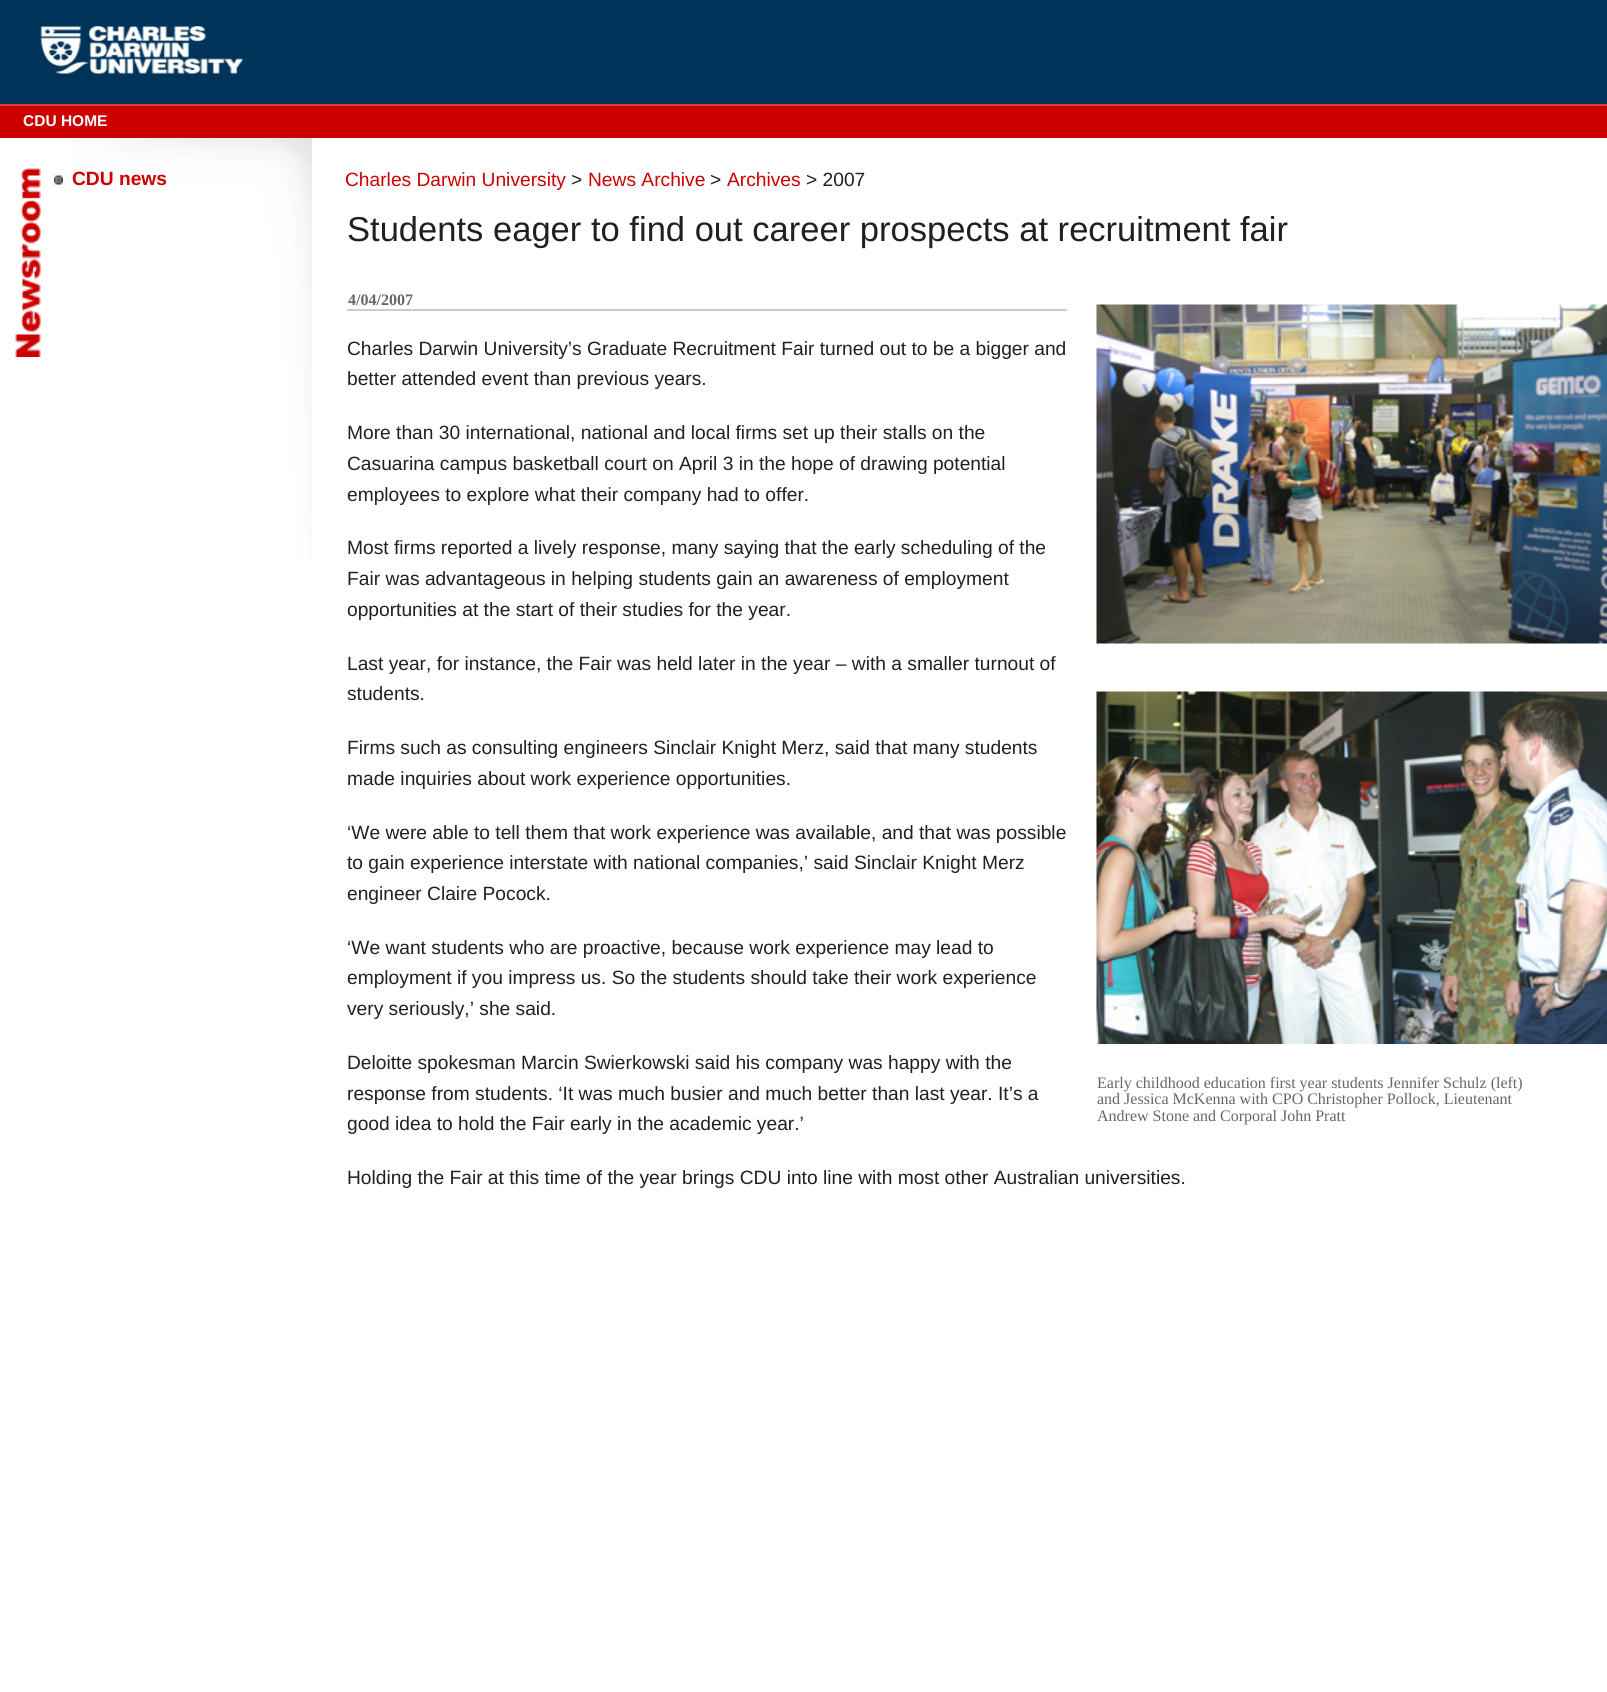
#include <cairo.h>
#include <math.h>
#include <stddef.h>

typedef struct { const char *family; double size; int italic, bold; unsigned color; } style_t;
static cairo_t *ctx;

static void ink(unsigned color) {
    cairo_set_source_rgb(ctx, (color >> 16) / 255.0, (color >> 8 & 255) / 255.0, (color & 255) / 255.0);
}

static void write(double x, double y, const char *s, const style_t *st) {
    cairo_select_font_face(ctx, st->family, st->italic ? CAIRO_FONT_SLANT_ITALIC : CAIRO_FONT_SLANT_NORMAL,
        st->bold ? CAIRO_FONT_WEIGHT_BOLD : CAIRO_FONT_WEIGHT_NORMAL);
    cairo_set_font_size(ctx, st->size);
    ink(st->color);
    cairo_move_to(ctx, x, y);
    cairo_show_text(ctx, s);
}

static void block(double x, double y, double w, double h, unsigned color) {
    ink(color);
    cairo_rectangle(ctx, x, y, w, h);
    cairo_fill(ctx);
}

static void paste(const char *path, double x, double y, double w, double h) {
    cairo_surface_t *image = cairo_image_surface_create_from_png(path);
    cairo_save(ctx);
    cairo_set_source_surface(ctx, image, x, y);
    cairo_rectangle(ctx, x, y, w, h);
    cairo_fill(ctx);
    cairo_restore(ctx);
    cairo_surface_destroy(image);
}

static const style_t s1 = {"Liberation Sans", 15.5, 0, 1, 0xffffff};
static const style_t s2 = {"Liberation Sans", 19.2, 0, 1, 0xcc0000};
static const style_t s3 = {"Liberation Sans", 19.2, 0, 0, 0xcc0000};
static const style_t s4 = {"Liberation Sans", 19.2, 0, 0, 0x202020};
static const style_t s5 = {"Liberation Sans", 34.55, 0, 0, 0x202020};
static const style_t s6 = {"Liberation Serif", 16, 0, 1, 0x666666};
static const style_t s7 = {"Liberation Serif", 16, 0, 0, 0x666666};

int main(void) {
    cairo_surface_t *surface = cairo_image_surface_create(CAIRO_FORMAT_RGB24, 1607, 1692);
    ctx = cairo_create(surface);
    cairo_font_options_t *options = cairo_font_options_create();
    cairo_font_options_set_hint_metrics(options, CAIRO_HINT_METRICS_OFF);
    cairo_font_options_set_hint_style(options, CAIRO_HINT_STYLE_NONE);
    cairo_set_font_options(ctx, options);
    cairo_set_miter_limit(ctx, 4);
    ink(0xffffff);
    cairo_paint(ctx);
    block(0, 0, 1607, 104, 0x003359);
    paste("pic1.png", 40, 26, 203, 48);
    block(0, 106, 1607, 32, 0xcc0000);
    block(0, 104, 1607, 2, 0xda3e3e);
    write(23, 126, "CDU HOME", &s1);
    paste("pic2.png", 73, 138, 239, 421);
    paste("pic3.png", 15, 168, 26, 189);
    paste("pic4.png", 54, 175, 9, 10);
    write(72, 185, "CDU news", &s2);
    write(345, 186, "Charles Darwin University", &s3);
    write(571, 186, ">", &s4);
    write(588, 186, "News Archive", &s3);
    write(710, 186, ">", &s4);
    write(727, 186, "Archives", &s3);
    write(806, 186, "> 2007", &s4);
    write(347, 241, "Students eager to find out career prospects at recruitment fair", &s5);
    block(347, 309, 720, 2, 0xcccccc);
    write(348, 305, "4/04/2007", &s6);
    paste("pic5.png", 1096, 304, 511, 340);
    write(347, 355, "Charles Darwin University’s Graduate Recruitment Fair turned out to be a bigger and", &s4);
    write(347, 385, "better attended event than previous years.", &s4);
    write(347, 439, "More than 30 international, national and local firms set up their stalls on the", &s4);
    write(347, 470, "Casuarina campus basketball court on April 3 in the hope of drawing potential", &s4);
    write(347, 501, "employees to explore what their company had to offer.", &s4);
    write(347, 554, "Most firms reported a lively response, many saying that the early scheduling of the", &s4);
    write(347, 585, "Fair was advantageous in helping students gain an awareness of employment", &s4);
    write(347, 616, "opportunities at the start of their studies for the year.", &s4);
    write(347, 670, "Last year, for instance, the Fair was held later in the year – with a smaller turnout of", &s4);
    write(347, 700, "students.", &s4);
    write(347, 754, "Firms such as consulting engineers Sinclair Knight Merz, said that many students", &s4);
    write(347, 785, "made inquiries about work experience opportunities.", &s4);
    write(347, 839, "‘We were able to tell them that work experience was available, and that was possible", &s4);
    write(347, 869, "to gain experience interstate with national companies,’ said Sinclair Knight Merz", &s4);
    write(347, 900, "engineer Claire Pocock.", &s4);
    write(347, 954, "‘We want students who are proactive, because work experience may lead to", &s4);
    write(347, 984, "employment if you impress us. So the students should take their work experience", &s4);
    write(347, 1015, "very seriously,’ she said.", &s4);
    write(347, 1069, "Deloitte spokesman Marcin Swierkowski said his company was happy with the", &s4);
    write(347, 1100, "response from students. ‘It was much busier and much better than last year. It’s a", &s4);
    write(347, 1130, "good idea to hold the Fair early in the academic year.’", &s4);
    paste("pic6.png", 1096, 691, 511, 353);
    write(1097, 1088, "Early childhood education first year students Jennifer Schulz (left)", &s7);
    write(1097, 1104, "and Jessica McKenna with CPO Christopher Pollock, Lieutenant", &s7);
    write(1097, 1121, "Andrew Stone and Corporal John Pratt", &s7);
    write(347, 1184, "Holding the Fair at this time of the year brings CDU into line with most other Australian universities.", &s4);
    cairo_surface_write_to_png(surface, "screenshot.png");
    cairo_font_options_destroy(options);
    cairo_destroy(ctx);
    cairo_surface_destroy(surface);
    return 0;
}
